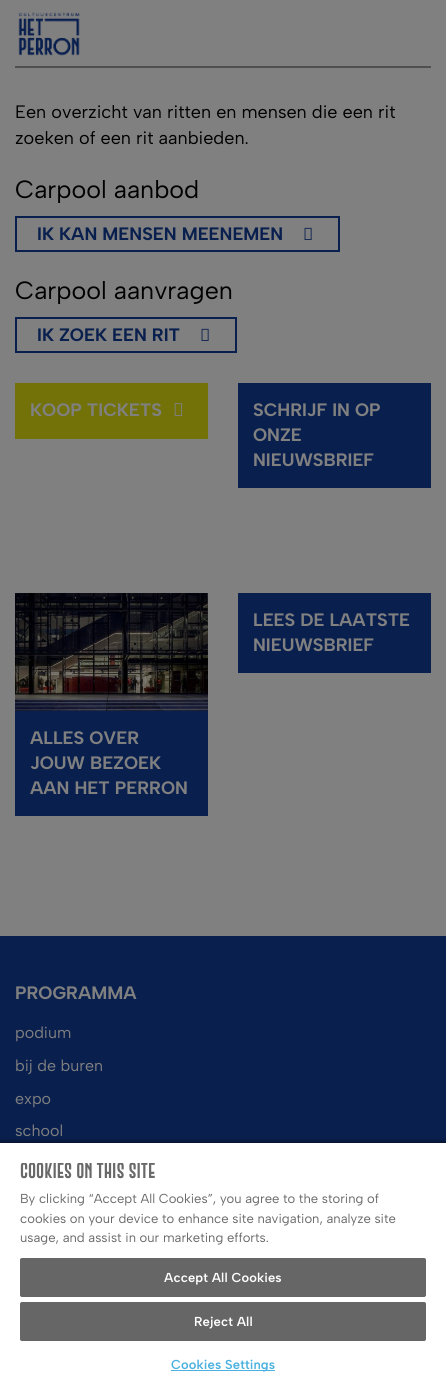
#include <cairo.h>
#include <math.h>
#include <stddef.h>

typedef struct { const char *family; double size; int italic, bold; unsigned color; } style_t;
static cairo_t *ctx;

static void ink(unsigned color) {
    cairo_set_source_rgb(ctx, (color >> 16) / 255.0, (color >> 8 & 255) / 255.0, (color & 255) / 255.0);
}

static void write(double x, double y, const char *s, const style_t *st) {
    cairo_select_font_face(ctx, st->family, st->italic ? CAIRO_FONT_SLANT_ITALIC : CAIRO_FONT_SLANT_NORMAL,
        st->bold ? CAIRO_FONT_WEIGHT_BOLD : CAIRO_FONT_WEIGHT_NORMAL);
    cairo_set_font_size(ctx, st->size);
    ink(st->color);
    cairo_move_to(ctx, x, y);
    cairo_show_text(ctx, s);
}

static void write_spaced(double x, double y, const char *s, double letter, double word) {
    cairo_move_to(ctx, x, y);
    while (*s) {
        char ch[5] = {0};
        int n = 0;
        do ch[n++] = *s++; while ((*s & 0xC0) == 0x80);
        cairo_show_text(ctx, ch);
        cairo_rel_move_to(ctx, letter + word * (*ch == ' '), 0);
    }
}

static void block(double x, double y, double w, double h, unsigned color) {
    ink(color);
    cairo_rectangle(ctx, x, y, w, h);
    cairo_fill(ctx);
}

static void round_path(double x, double y, double w, double h, double r) {
    cairo_new_sub_path(ctx);
    cairo_arc(ctx, x + w - r, y + h - r, r, 0, M_PI / 2);
    cairo_arc(ctx, x + r, y + h - r, r, M_PI / 2, M_PI);
    cairo_arc(ctx, x + r, y + r, r, M_PI, 1.5 * M_PI);
    cairo_arc(ctx, x + w - r, y + r, r, 1.5 * M_PI, 2 * M_PI);
    cairo_close_path(ctx);
}

static void blur_box(double x, double y, double w, double h, double r, double blur, double alpha) {
    cairo_push_group_with_content(ctx, CAIRO_CONTENT_ALPHA);
    cairo_set_operator(ctx, CAIRO_OPERATOR_SOURCE);
    for (int i = 15; i >= -15 && fmin(w, h) + blur * i / 3 > 0; i -= 2) {
        double e = blur * i / 6;
        cairo_set_source_rgba(ctx, 0, 0, 0, alpha * erfc((i - 1) / 8.5) / 2);
        round_path(x - e, y - e, w + 2 * e, h + 2 * e, fmax(0, fmin(r + e + blur * .6, fmin(w, h) / 2 + e)));
        cairo_fill(ctx);
    }
    cairo_pattern_t *soft = cairo_pop_group(ctx);
    cairo_mask(ctx, soft);
    cairo_pattern_destroy(soft);
}

static void paste(const char *path, double x, double y, double w, double h) {
    cairo_surface_t *image = cairo_image_surface_create_from_png(path);
    cairo_save(ctx);
    cairo_set_source_surface(ctx, image, x, y);
    cairo_rectangle(ctx, x, y, w, h);
    cairo_fill(ctx);
    cairo_restore(ctx);
    cairo_surface_destroy(image);
}

static const style_t s1 = {"Albert Sans", 18, 0, 0, 0x000000};
static const style_t s2 = {"Albert Sans", 25, 0, 0, 0x000000};
static const style_t s3 = {"Albert Sans", 18, 0, 1, 0x091f4e};
static const style_t s4 = {"Albert Sans", 18, 0, 1, 0x808080};
static const style_t s5 = {"Albert Sans", 16, 0, 0, 0x808080};
static const style_t s6 = {"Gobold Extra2", 16, 0, 1, 0x696969};
static const style_t s7 = {"Albert Sans", 13, 0, 0, 0x696969};

int main(void) {
    cairo_surface_t *surface = cairo_image_surface_create(CAIRO_FORMAT_RGB24, 446, 1388);
    ctx = cairo_create(surface);
    cairo_font_options_t *options = cairo_font_options_create();
    cairo_font_options_set_hint_metrics(options, CAIRO_HINT_METRICS_OFF);
    cairo_font_options_set_hint_style(options, CAIRO_HINT_STYLE_NONE);
    cairo_set_font_options(ctx, options);
    cairo_set_miter_limit(ctx, 4);
    ink(0x808080);
    cairo_paint(ctx);
    paste("pic1.png", 18, 12, 62, 44);
    block(15, 66, 416, 2, 0x4f4f4e);
    write(15, 118, "Een overzicht van ritten en mensen die een rit", &s1);
    write(15, 144, "zoeken of een rit aanbieden.", &s1);
    write(15, 198, "Carpool aanbod", &s2);
    cairo_rectangle(ctx, 16, 217, 323, 34);
    ink(0x091f4e);
    cairo_stroke(ctx);
    write(37, 240, "IK KAN MENSEN MEENEMEN", &s3);
    paste("pic2.png", 304, 227, 8, 13);
    write(15, 299, "Carpool aanvragen", &s2);
    cairo_rectangle(ctx, 16, 318, 220, 34);
    ink(0x091f4e);
    cairo_stroke(ctx);
    write(37, 341, "IK ZOEK EEN RIT", &s3);
    paste("pic2.png", 201, 328, 8, 13);
    block(15, 383, 193, 56, 0x727209);
    write(30, 416, "KOOP TICKETS", &s4);
    paste("pic3.png", 174, 403, 9, 13);
    block(238, 383, 193, 105, 0x091f4e);
    write(253, 416, "SCHRIJF IN OP", &s4);
    write(253, 441, "ONZE", &s4);
    write(253, 466, "NIEUWSBRIEF", &s4);
    block(238, 593, 193, 80, 0x091f4e);
    write(253, 626, "LEES DE LAATSTE", &s4);
    write(253, 651, "NIEUWSBRIEF", &s4);
    block(15, 711, 193, 105, 0x091f4e);
    paste("pic4.png", 15, 593, 193, 118);
    write(30, 744, "ALLES OVER", &s4);
    write(30, 769, "JOUW BEZOEK", &s4);
    write(30, 794, "AAN HET PERRON", &s4);
    block(0, 936, 446, 207, 0x091f4e);
    write(15, 999, "PROGRAMMA", &s4);
    write(15, 1038, "podium", &s5);
    write(15, 1071, "bij de buren", &s5);
    write(15, 1104, "expo", &s5);
    write(15, 1136, "school", &s5);
    ink(0x000000);
    blur_box(0, 1141, 446, 247, 0, 2, 0.35);
    blur_box(0, 1143, 446, 245, 0, 2, 0.2);
    block(0, 1143, 446, 245, 0xffffff);
    cairo_save(ctx);
    cairo_rectangle(ctx, 20, 1163, 406, 95);
    cairo_clip(ctx);
    write(20, 1178, "Cookies on this site", &s6);
    cairo_restore(ctx);
    write(20, 1203, "By clicking “Accept All Cookies”, you agree to the storing of", &s7);
    write(20, 1223, "cookies on your device to enhance site navigation, analyze site", &s7);
    write(20, 1242, "usage, and assist in our marketing efforts.", &s7);
    ink(0x666666);
    round_path(20.5, 1258.5, 405, 38, 1.5);
    cairo_fill_preserve(ctx);
    cairo_set_line_width(ctx, 1);
    cairo_stroke(ctx);
    cairo_select_font_face(ctx, "Albert Sans SemiBold", CAIRO_FONT_SLANT_NORMAL, CAIRO_FONT_WEIGHT_NORMAL);
    ink(0xffffff);
    write_spaced(164, 1282, "Accept All Cookies", 0.1, 0);
    ink(0x666666);
    round_path(20.5, 1302.5, 405, 38, 1.5);
    cairo_fill_preserve(ctx);
    cairo_stroke(ctx);
    ink(0xffffff);
    write_spaced(194, 1326, "Reject All", 0.1, 0);
    block(171, 1370, 104, 1, 0x4bb1e0);
    write_spaced(171, 1369, "Cookies Settings", 0.1, 0);
    cairo_surface_write_to_png(surface, "screenshot.png");
    cairo_font_options_destroy(options);
    cairo_destroy(ctx);
    cairo_surface_destroy(surface);
    return 0;
}
